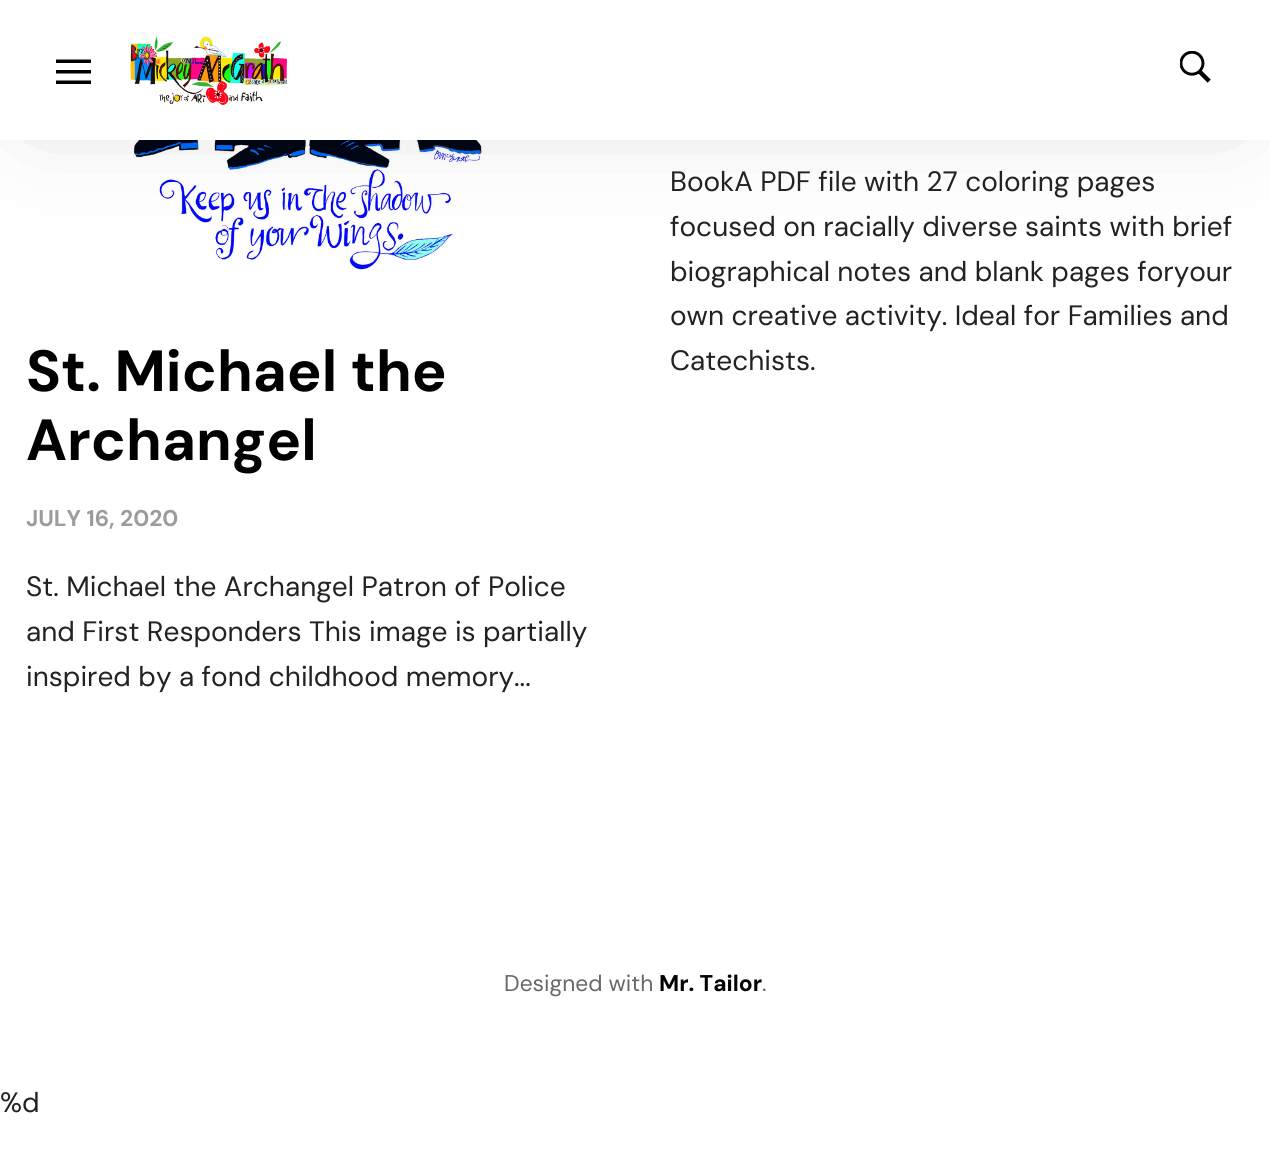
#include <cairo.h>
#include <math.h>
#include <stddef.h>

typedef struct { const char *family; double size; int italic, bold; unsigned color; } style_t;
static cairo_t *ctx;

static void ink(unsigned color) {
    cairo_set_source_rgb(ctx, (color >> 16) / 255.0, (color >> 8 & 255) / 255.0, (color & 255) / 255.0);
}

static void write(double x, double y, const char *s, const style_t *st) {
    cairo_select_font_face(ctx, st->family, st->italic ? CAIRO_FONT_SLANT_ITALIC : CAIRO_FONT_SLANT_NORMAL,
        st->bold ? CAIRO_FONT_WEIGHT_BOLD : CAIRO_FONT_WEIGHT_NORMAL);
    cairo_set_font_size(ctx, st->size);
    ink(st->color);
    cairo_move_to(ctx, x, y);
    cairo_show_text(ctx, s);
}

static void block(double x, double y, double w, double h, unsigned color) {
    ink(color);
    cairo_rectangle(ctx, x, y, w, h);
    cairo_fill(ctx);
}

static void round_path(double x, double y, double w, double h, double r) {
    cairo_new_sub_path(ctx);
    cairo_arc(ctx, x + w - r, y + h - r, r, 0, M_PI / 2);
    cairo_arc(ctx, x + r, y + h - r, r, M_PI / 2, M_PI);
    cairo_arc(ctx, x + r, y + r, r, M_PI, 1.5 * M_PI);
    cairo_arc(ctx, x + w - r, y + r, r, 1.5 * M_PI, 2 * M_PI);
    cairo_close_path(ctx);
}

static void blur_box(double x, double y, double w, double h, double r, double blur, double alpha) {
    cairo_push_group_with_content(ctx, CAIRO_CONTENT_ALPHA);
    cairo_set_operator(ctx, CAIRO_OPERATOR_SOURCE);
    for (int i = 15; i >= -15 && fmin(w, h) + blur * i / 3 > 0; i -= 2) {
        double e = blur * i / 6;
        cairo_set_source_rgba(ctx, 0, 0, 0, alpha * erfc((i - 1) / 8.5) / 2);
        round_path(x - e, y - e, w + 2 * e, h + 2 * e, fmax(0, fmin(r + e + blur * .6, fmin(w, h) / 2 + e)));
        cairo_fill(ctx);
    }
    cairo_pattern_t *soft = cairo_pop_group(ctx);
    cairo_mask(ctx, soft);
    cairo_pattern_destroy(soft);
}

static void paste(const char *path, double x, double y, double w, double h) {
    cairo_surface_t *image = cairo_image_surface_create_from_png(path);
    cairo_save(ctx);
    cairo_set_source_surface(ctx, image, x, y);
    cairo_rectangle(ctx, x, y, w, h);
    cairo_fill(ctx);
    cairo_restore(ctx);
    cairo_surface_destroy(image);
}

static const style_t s1 = {"DM Sans", 28, 0, 0, 0x222222};
static const style_t s2 = {"DM Sans", 58, 0, 1, 0x000000};
static const style_t s3 = {"DM Sans", 22.75, 0, 1, 0x9c9c9c};
static const style_t s4 = {"DM Sans", 22.75, 0, 0, 0x686868};
static const style_t s5 = {"DM Sans", 22.75, 0, 1, 0x000000};

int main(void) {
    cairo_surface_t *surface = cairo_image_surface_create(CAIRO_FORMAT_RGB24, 1270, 1153);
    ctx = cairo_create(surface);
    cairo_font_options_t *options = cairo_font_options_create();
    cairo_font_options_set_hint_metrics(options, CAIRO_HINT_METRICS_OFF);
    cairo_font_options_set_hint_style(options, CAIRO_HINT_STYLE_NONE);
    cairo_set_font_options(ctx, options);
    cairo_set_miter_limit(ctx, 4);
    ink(0xffffff);
    cairo_paint(ctx);
    paste("pic3.png", 107, 140, 434, 130);
    ink(0x000000);
    blur_box(33, 33, 1204, 74, 0, 57, 0.17);
    block(0, 0, 1270, 140, 0xffffff);
    ink(0x000000);
    cairo_new_path(ctx);
    cairo_move_to(ctx, 56, 59.5);
    cairo_line_to(ctx, 56, 63);
    cairo_line_to(ctx, 91, 63);
    cairo_line_to(ctx, 91, 59.5);
    cairo_close_path(ctx);
    cairo_move_to(ctx, 56, 70);
    cairo_line_to(ctx, 56, 73.5);
    cairo_line_to(ctx, 91, 73.5);
    cairo_line_to(ctx, 91, 70);
    cairo_close_path(ctx);
    cairo_move_to(ctx, 56, 80.5);
    cairo_line_to(ctx, 56, 84);
    cairo_line_to(ctx, 91, 84);
    cairo_line_to(ctx, 91, 80.5);
    cairo_close_path(ctx);
    cairo_fill(ctx);
    paste("pic1.png", 130, 36, 158, 69);
    paste("pic2.png", 1180, 51, 31, 32);
    write(670, 191, "BookA PDF file with 27 coloring pages", &s1);
    write(670, 236, "focused on racially diverse saints with brief", &s1);
    write(670, 281, "biographical notes and blank pages foryour", &s1);
    write(670, 325, "own creative activity. Ideal for Families and", &s1);
    write(670, 370, "Catechists.", &s1);
    write(26, 391, "St. Michael the", &s2);
    write(26, 460, "Archangel", &s2);
    write(26, 526, "JULY 16, 2020", &s3);
    write(26, 596, "St. Michael the Archangel Patron of Police", &s1);
    write(26, 641, "and First Responders This image is partially", &s1);
    write(26, 686, "inspired by a fond childhood memory...", &s1);
    write(504, 991, "Designed with", &s4);
    write(659, 991, "Mr. Tailor", &s5);
    write(762, 991, ".", &s4);
    write(0, 1112, "%d", &s1);
    cairo_surface_write_to_png(surface, "screenshot.png");
    cairo_font_options_destroy(options);
    cairo_destroy(ctx);
    cairo_surface_destroy(surface);
    return 0;
}
